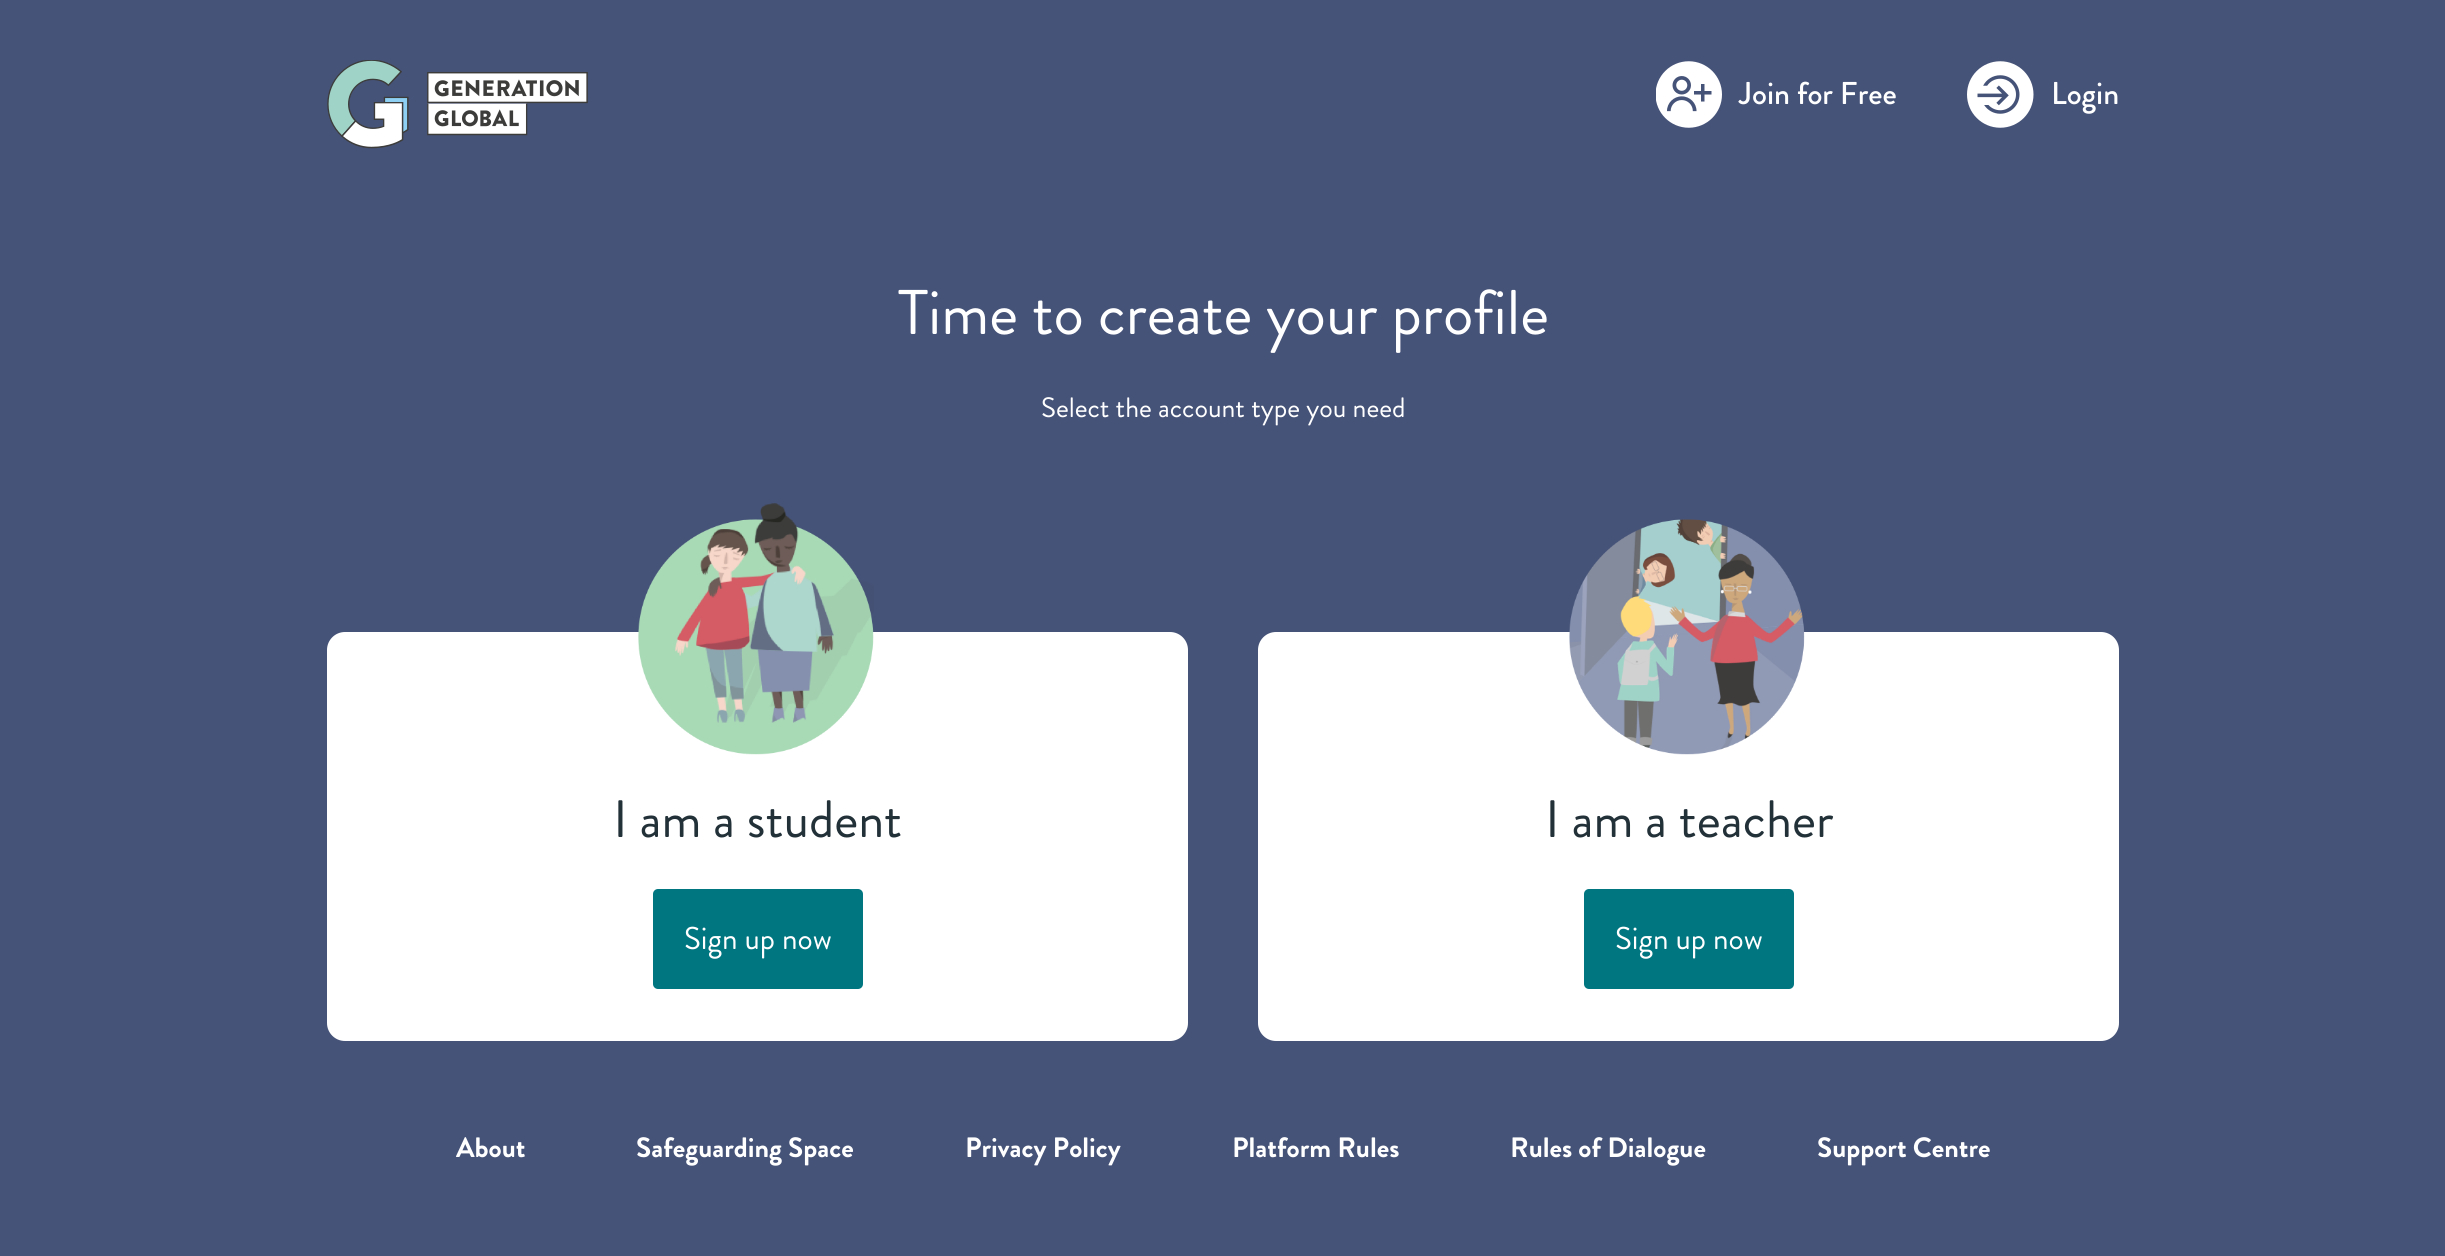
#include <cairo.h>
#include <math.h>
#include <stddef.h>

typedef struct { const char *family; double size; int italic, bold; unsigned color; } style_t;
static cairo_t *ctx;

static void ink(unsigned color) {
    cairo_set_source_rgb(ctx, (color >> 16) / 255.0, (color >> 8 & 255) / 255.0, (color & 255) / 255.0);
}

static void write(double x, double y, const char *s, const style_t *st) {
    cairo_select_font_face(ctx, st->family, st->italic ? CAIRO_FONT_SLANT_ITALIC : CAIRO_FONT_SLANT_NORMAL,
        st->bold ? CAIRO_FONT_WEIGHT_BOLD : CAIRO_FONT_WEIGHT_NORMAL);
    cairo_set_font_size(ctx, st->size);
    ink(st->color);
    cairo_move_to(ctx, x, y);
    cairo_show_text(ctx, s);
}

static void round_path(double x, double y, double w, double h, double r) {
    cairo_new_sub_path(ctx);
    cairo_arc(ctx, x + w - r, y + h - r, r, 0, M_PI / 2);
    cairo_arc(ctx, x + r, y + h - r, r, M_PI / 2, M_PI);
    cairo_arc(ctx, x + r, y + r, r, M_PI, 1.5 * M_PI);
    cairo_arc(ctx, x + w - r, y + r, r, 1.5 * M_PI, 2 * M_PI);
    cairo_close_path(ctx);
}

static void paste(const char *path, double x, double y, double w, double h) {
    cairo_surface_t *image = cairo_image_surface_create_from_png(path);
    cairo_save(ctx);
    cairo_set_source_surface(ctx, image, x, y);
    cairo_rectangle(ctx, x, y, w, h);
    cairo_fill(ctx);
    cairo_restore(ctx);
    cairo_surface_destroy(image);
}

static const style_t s1 = {"Brandon Grotesque Medium", 31.5, 0, 0, 0xffffff};
static const style_t s2 = {"Brandon Grotesque", 63, 0, 0, 0xffffff};
static const style_t s3 = {"Brandon Grotesque", 28, 0, 0, 0xffffff};
static const style_t s4 = {"Brandon Grotesque", 52.5, 0, 0, 0x223038};
static const style_t s5 = {"Brandon Grotesque", 31.5, 0, 0, 0xffffff};
static const style_t s6 = {"Brandon Grotesque", 28, 0, 1, 0xffffff};

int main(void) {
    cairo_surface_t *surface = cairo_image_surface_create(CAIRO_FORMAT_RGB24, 2445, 1256);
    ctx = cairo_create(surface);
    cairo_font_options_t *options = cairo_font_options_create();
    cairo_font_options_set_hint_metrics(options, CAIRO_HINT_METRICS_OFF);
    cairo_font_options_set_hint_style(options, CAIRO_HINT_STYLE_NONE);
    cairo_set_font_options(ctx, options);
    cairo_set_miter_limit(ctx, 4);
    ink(0x465378);
    cairo_paint(ctx);
    paste("pic1.png", 327, 60, 261, 89);
    paste("pic2.png", 1656, 61, 66, 67);
    write(1739, 104, "Join for Free", &s1);
    paste("pic3.png", 1967, 61, 67, 67);
    write(2051, 104, "Login", &s1);
    write(898, 334, "Time to create your profile", &s2);
    write(1041, 417, "Select the account type you need", &s3);
    round_path(327, 632, 861, 409, 18);
    cairo_fill(ctx);
    paste("pic4.png", 638, 503, 236, 252);
    write(613, 837, "I am a student", &s4);
    ink(0x007681);
    round_path(653, 889, 210, 100, 5);
    cairo_fill(ctx);
    write(684, 949, "Sign up now", &s5);
    round_path(1258, 632, 861, 409, 18);
    cairo_fill(ctx);
    paste("pic5.png", 1569, 519, 236, 236);
    write(1545, 837, "I am a teacher", &s4);
    ink(0x007681);
    round_path(1584, 889, 210, 100, 5);
    cairo_fill(ctx);
    write(1615, 949, "Sign up now", &s5);
    write(456, 1157, "About", &s6);
    write(636, 1157, "Safeguarding Space", &s6);
    write(965, 1157, "Privacy Policy", &s6);
    write(1232, 1157, "Platform Rules", &s6);
    write(1510, 1157, "Rules of Dialogue", &s6);
    write(1817, 1157, "Support Centre", &s6);
    cairo_surface_write_to_png(surface, "screenshot.png");
    cairo_font_options_destroy(options);
    cairo_destroy(ctx);
    cairo_surface_destroy(surface);
    return 0;
}
